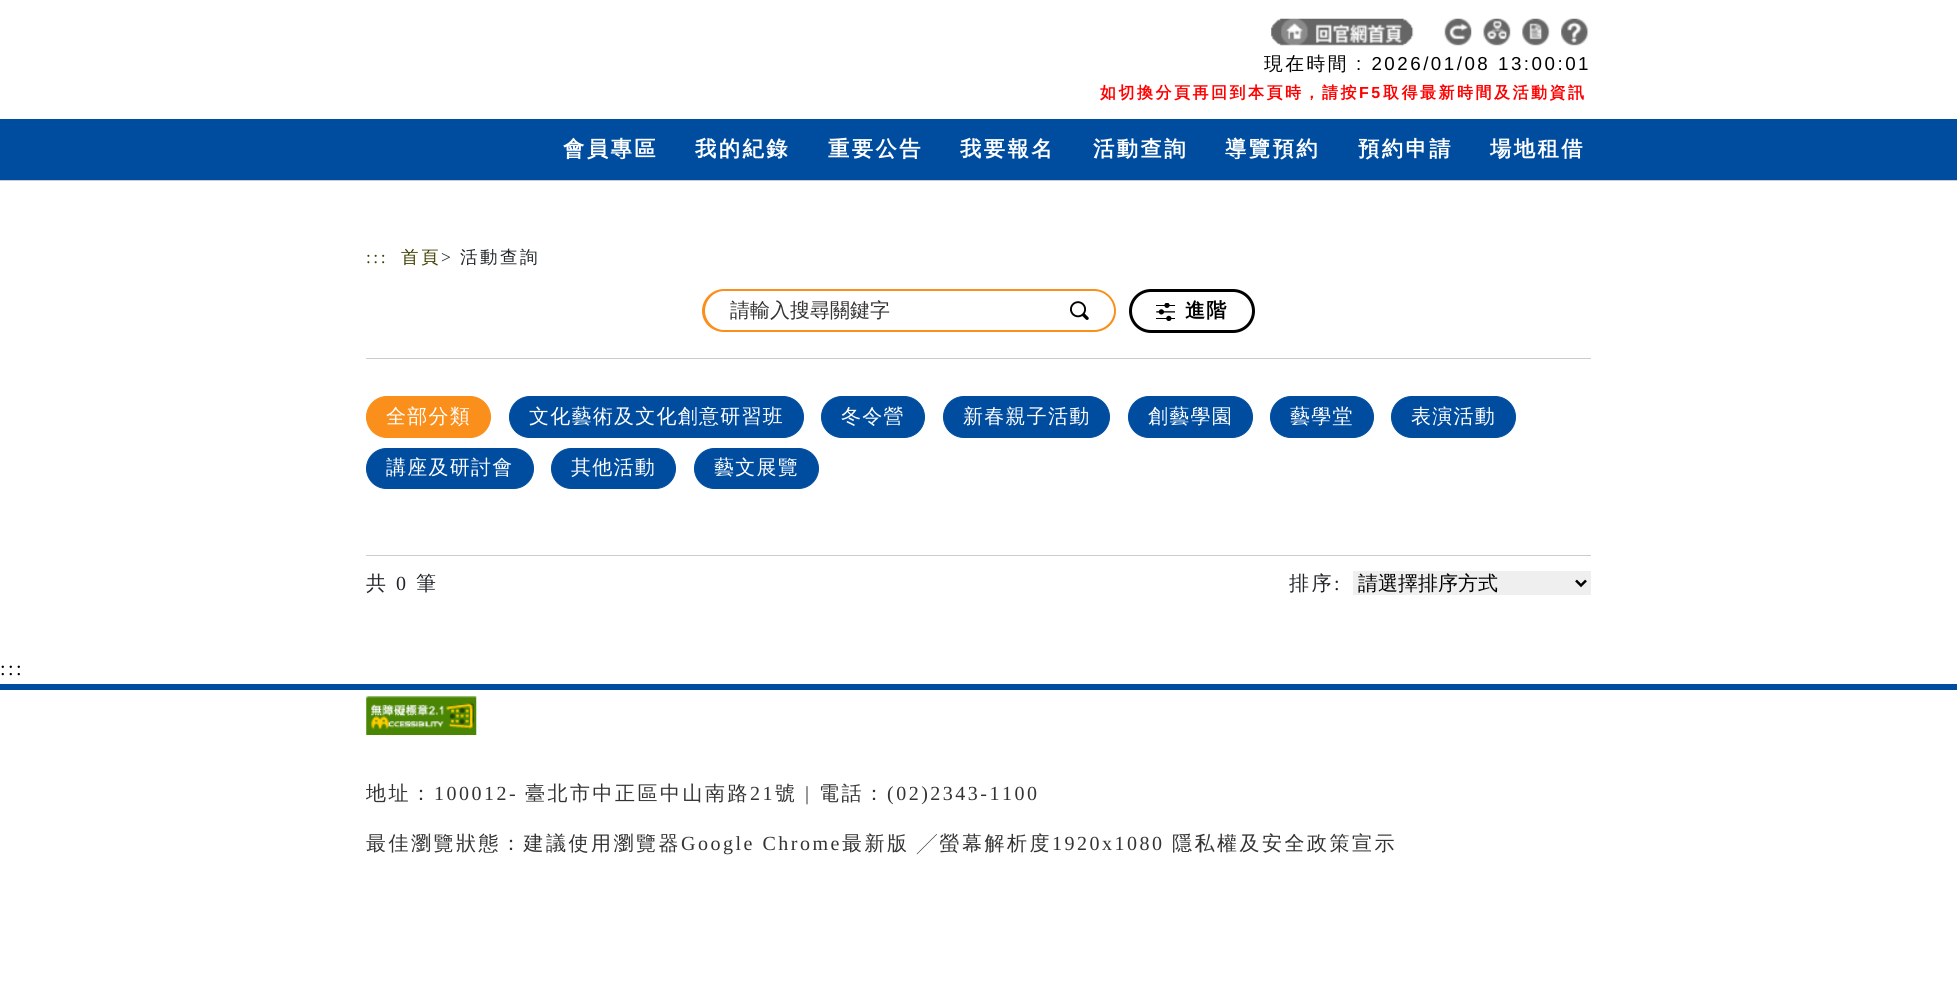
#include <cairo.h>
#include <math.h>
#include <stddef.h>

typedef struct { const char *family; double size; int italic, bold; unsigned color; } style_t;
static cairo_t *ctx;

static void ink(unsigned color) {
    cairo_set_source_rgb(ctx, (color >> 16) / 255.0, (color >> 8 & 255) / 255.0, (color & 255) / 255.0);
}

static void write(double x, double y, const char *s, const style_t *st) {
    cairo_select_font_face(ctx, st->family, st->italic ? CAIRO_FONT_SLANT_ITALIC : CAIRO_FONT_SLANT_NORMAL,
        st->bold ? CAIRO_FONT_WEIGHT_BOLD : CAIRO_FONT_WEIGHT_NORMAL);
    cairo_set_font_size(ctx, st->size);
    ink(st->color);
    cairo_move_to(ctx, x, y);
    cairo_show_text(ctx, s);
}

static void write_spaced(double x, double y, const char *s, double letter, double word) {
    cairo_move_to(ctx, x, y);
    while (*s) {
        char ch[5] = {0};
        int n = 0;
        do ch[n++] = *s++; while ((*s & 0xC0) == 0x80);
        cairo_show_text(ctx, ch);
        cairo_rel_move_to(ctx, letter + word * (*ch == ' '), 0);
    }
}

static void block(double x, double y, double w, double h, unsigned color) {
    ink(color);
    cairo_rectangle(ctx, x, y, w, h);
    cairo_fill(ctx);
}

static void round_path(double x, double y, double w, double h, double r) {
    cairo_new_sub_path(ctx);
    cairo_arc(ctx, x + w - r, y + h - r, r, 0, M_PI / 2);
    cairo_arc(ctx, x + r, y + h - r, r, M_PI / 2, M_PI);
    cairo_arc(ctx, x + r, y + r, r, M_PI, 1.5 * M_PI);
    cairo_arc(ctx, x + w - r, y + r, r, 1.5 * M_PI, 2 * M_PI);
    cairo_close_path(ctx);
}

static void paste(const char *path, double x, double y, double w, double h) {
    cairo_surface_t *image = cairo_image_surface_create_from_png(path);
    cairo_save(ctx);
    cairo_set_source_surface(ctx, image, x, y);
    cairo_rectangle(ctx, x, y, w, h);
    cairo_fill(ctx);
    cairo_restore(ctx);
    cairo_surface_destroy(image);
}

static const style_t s1 = {"WenQuanYi Zen Hei Medium", 20, 0, 0, 0x333333};
static const style_t s2 = {"WenQuanYi Zen Hei Medium", 20, 0, 0, 0x000000};

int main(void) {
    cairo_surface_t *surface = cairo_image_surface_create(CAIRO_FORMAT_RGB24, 1957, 1000);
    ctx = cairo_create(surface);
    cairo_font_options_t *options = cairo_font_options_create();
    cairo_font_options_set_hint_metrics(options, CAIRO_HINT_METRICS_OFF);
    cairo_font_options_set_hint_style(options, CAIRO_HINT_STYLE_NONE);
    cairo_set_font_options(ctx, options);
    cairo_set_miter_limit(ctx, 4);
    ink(0xffffff);
    cairo_paint(ctx);
    block(0, 119, 1957, 61, 0x004da0);
    block(0, 180, 1957, 1, 0xcccccc);
    paste("pic1.png", 1271, 18, 143, 28);
    paste("pic2.png", 1444, 18, 28, 28);
    paste("pic3.png", 1483, 18, 28, 28);
    paste("pic4.png", 1522, 18, 28, 28);
    paste("pic5.png", 1561, 18, 28, 28);
    cairo_select_font_face(ctx, "WenQuanYi Zen Hei Medium", CAIRO_FONT_SLANT_NORMAL, CAIRO_FONT_WEIGHT_NORMAL);
    cairo_set_font_size(ctx, 18.75);
    ink(0x000000);
    write_spaced(1264, 70, "現在時間", 2.5, 0);
    cairo_select_font_face(ctx, "Liberation Sans", CAIRO_FONT_SLANT_NORMAL, CAIRO_FONT_WEIGHT_NORMAL);
    write_spaced(1356, 70, ": 2026/01/08 13:00:01", 2.5, 0);
    cairo_select_font_face(ctx, "WenQuanYi Zen Hei", CAIRO_FONT_SLANT_NORMAL, CAIRO_FONT_WEIGHT_BOLD);
    cairo_set_font_size(ctx, 16);
    ink(0xff0000);
    write_spaced(1100, 98, "如切換分頁再回到本頁時，請按", 2.5, 0);
    cairo_select_font_face(ctx, "Liberation Sans", CAIRO_FONT_SLANT_NORMAL, CAIRO_FONT_WEIGHT_BOLD);
    write_spaced(1359, 98, "F5", 2.5, 0);
    cairo_select_font_face(ctx, "WenQuanYi Zen Hei", CAIRO_FONT_SLANT_NORMAL, CAIRO_FONT_WEIGHT_BOLD);
    write_spaced(1383, 98, "取得最新時間及活動資訊", 2.5, 0);
    cairo_set_font_size(ctx, 21.25);
    ink(0xffffff);
    write_spaced(563, 156, "會員專區", 2.5, 0);
    write_spaced(695, 156, "我的紀錄", 2.5, 0);
    write_spaced(828, 156, "重要公告", 2.5, 0);
    write_spaced(960, 156, "我要報名", 2.5, 0);
    write_spaced(1093, 156, "活動查詢", 2.5, 0);
    write_spaced(1225, 156, "導覽預約", 2.5, 0);
    write_spaced(1358, 156, "預約申請", 2.5, 0);
    write_spaced(1490, 156, "場地租借", 2.5, 0);
    cairo_select_font_face(ctx, "Liberation Serif", CAIRO_FONT_SLANT_NORMAL, CAIRO_FONT_WEIGHT_NORMAL);
    cairo_set_font_size(ctx, 17.5);
    ink(0x3e3e00);
    write_spaced(366, 263, ":::", 2.5, 0);
    cairo_select_font_face(ctx, "WenQuanYi Zen Hei Medium", CAIRO_FONT_SLANT_NORMAL, CAIRO_FONT_WEIGHT_NORMAL);
    write_spaced(401, 263, "首頁", 2.5, 0);
    cairo_select_font_face(ctx, "Liberation Serif", CAIRO_FONT_SLANT_NORMAL, CAIRO_FONT_WEIGHT_NORMAL);
    ink(0x212529);
    write_spaced(441, 263, ">", 2.5, 0);
    cairo_select_font_face(ctx, "WenQuanYi Zen Hei Medium", CAIRO_FONT_SLANT_NORMAL, CAIRO_FONT_WEIGHT_NORMAL);
    write_spaced(460, 263, "活動查詢", 2.5, 0);
    ink(0xfa8f1b);
    cairo_set_fill_rule(ctx, CAIRO_FILL_RULE_EVEN_ODD);
    cairo_new_path(ctx);
    cairo_move_to(ctx, 724, 289);
    cairo_line_to(ctx, 1046, 289);
    cairo_line_to(ctx, 1046, 332);
    cairo_line_to(ctx, 724, 332);
    cairo_curve_to(ctx, 712, 332, 702, 323, 702, 311);
    cairo_curve_to(ctx, 702, 299, 712, 289, 724, 289);
    cairo_close_path(ctx);
    cairo_move_to(ctx, 724, 291);
    cairo_line_to(ctx, 1046, 291);
    cairo_line_to(ctx, 1046, 330);
    cairo_line_to(ctx, 724, 330);
    cairo_curve_to(ctx, 714, 330, 705, 321, 705, 311);
    cairo_curve_to(ctx, 705, 300, 714, 291, 724, 291);
    cairo_close_path(ctx);
    cairo_fill(ctx);
    write(730, 317, "請輸入搜尋關鍵字", &s1);
    ink(0xfa8f1b);
    cairo_new_path(ctx);
    cairo_move_to(ctx, 1046, 289);
    cairo_line_to(ctx, 1094, 289);
    cairo_curve_to(ctx, 1106, 289, 1116, 299, 1116, 311);
    cairo_curve_to(ctx, 1116, 323, 1106, 332, 1094, 332);
    cairo_line_to(ctx, 1046, 332);
    cairo_close_path(ctx);
    cairo_move_to(ctx, 1046, 291);
    cairo_line_to(ctx, 1094, 291);
    cairo_curve_to(ctx, 1105, 291, 1114, 300, 1114, 311);
    cairo_curve_to(ctx, 1114, 321, 1105, 330, 1094, 330);
    cairo_line_to(ctx, 1046, 330);
    cairo_close_path(ctx);
    cairo_fill(ctx);
    paste("pic6.png", 1070, 301, 19, 19);
    round_path(1130.5, 290.5, 123, 41, 20.5);
    ink(0x000000);
    cairo_set_line_width(ctx, 3);
    cairo_stroke(ctx);
    paste("pic7.png", 1156, 303, 19, 18);
    cairo_select_font_face(ctx, "WenQuanYi Zen Hei", CAIRO_FONT_SLANT_NORMAL, CAIRO_FONT_WEIGHT_BOLD);
    write_spaced(1185, 317, "進階", 1.25, 0);
    block(366, 358, 1225, 1, 0xcccccc);
    ink(0xfa8f1b);
    round_path(366.5, 396.5, 124, 41, 20.5);
    cairo_fill_preserve(ctx);
    cairo_set_line_width(ctx, 1);
    cairo_stroke(ctx);
    cairo_select_font_face(ctx, "WenQuanYi Zen Hei Medium", CAIRO_FONT_SLANT_NORMAL, CAIRO_FONT_WEIGHT_NORMAL);
    ink(0xffffff);
    write_spaced(386, 423, "全部分類", 1.25, 0);
    ink(0x004da0);
    round_path(509.5, 396.5, 294, 41, 20.5);
    cairo_fill_preserve(ctx);
    cairo_stroke(ctx);
    ink(0xffffff);
    write_spaced(529, 423, "文化藝術及文化創意研習班", 1.25, 0);
    ink(0x004da0);
    round_path(821.5, 396.5, 103, 41, 20.5);
    cairo_fill_preserve(ctx);
    cairo_stroke(ctx);
    ink(0xffffff);
    write_spaced(841, 423, "冬令營", 1.25, 0);
    ink(0x004da0);
    round_path(943.5, 396.5, 166, 41, 20.5);
    cairo_fill_preserve(ctx);
    cairo_stroke(ctx);
    ink(0xffffff);
    write_spaced(963, 423, "新春親子活動", 1.25, 0);
    ink(0x004da0);
    round_path(1128.5, 396.5, 124, 41, 20.5);
    cairo_fill_preserve(ctx);
    cairo_stroke(ctx);
    ink(0xffffff);
    write_spaced(1148, 423, "創藝學園", 1.25, 0);
    ink(0x004da0);
    round_path(1270.5, 396.5, 103, 41, 20.5);
    cairo_fill_preserve(ctx);
    cairo_stroke(ctx);
    ink(0xffffff);
    write_spaced(1290, 423, "藝學堂", 1.25, 0);
    ink(0x004da0);
    round_path(1391.5, 396.5, 124, 41, 20.5);
    cairo_fill_preserve(ctx);
    cairo_stroke(ctx);
    ink(0xffffff);
    write_spaced(1411, 423, "表演活動", 1.25, 0);
    ink(0x004da0);
    round_path(366.5, 448.5, 167, 40, 20);
    cairo_fill_preserve(ctx);
    cairo_stroke(ctx);
    ink(0xffffff);
    write_spaced(386, 474, "講座及研討會", 1.25, 0);
    ink(0x004da0);
    round_path(551.5, 448.5, 124, 40, 20);
    cairo_fill_preserve(ctx);
    cairo_stroke(ctx);
    ink(0xffffff);
    write_spaced(571, 474, "其他活動", 1.25, 0);
    ink(0x004da0);
    round_path(694.5, 448.5, 124, 40, 20);
    cairo_fill_preserve(ctx);
    cairo_stroke(ctx);
    ink(0xffffff);
    write_spaced(714, 474, "藝文展覽", 1.25, 0);
    block(366, 555, 1225, 1, 0xcccccc);
    ink(0x212529);
    write_spaced(366, 590, "共", 2.5, 0);
    cairo_select_font_face(ctx, "Liberation Serif", CAIRO_FONT_SLANT_NORMAL, CAIRO_FONT_WEIGHT_NORMAL);
    write_spaced(396, 590, "0", 2.5, 0);
    cairo_select_font_face(ctx, "WenQuanYi Zen Hei Medium", CAIRO_FONT_SLANT_NORMAL, CAIRO_FONT_WEIGHT_NORMAL);
    write_spaced(416, 590, "筆", 2.5, 0);
    write_spaced(1289, 590, "排序", 2.5, 0);
    cairo_select_font_face(ctx, "Liberation Serif", CAIRO_FONT_SLANT_NORMAL, CAIRO_FONT_WEIGHT_NORMAL);
    write_spaced(1334, 590, ":", 2.5, 0);
    block(1353, 571, 238, 24, 0xefefef);
    cairo_new_path(ctx);
    cairo_move_to(ctx, 1576, 580.5);
    cairo_line_to(ctx, 1581, 585.5);
    cairo_line_to(ctx, 1586, 580.5);
    ink(0x000000);
    cairo_set_line_width(ctx, 2.5);
    cairo_stroke(ctx);
    write(1358, 590, "請選擇排序方式", &s2);
    cairo_select_font_face(ctx, "Liberation Serif", CAIRO_FONT_SLANT_NORMAL, CAIRO_FONT_WEIGHT_NORMAL);
    write_spaced(0, 675, ":::", 2.5, 0);
    block(0, 684, 1957, 6, 0x004da0);
    paste("pic8.png", 366, 696, 111, 39);
    cairo_select_font_face(ctx, "WenQuanYi Zen Hei Medium", CAIRO_FONT_SLANT_NORMAL, CAIRO_FONT_WEIGHT_NORMAL);
    ink(0x333333);
    write_spaced(366, 800, "地址：", 2.5, 0);
    cairo_select_font_face(ctx, "Liberation Serif", CAIRO_FONT_SLANT_NORMAL, CAIRO_FONT_WEIGHT_NORMAL);
    write_spaced(434, 800, "100012-", 2.5, 0);
    cairo_select_font_face(ctx, "WenQuanYi Zen Hei Medium", CAIRO_FONT_SLANT_NORMAL, CAIRO_FONT_WEIGHT_NORMAL);
    write_spaced(525, 800, "臺北市中正區中山南路", 2.5, 0);
    cairo_select_font_face(ctx, "Liberation Serif", CAIRO_FONT_SLANT_NORMAL, CAIRO_FONT_WEIGHT_NORMAL);
    write_spaced(750, 800, "21", 2.5, 0);
    cairo_select_font_face(ctx, "WenQuanYi Zen Hei Medium", CAIRO_FONT_SLANT_NORMAL, CAIRO_FONT_WEIGHT_NORMAL);
    write_spaced(775, 800, "號", 2.5, 0);
    cairo_select_font_face(ctx, "Liberation Serif", CAIRO_FONT_SLANT_NORMAL, CAIRO_FONT_WEIGHT_NORMAL);
    write_spaced(805, 800, "|", 2.5, 0);
    cairo_select_font_face(ctx, "WenQuanYi Zen Hei Medium", CAIRO_FONT_SLANT_NORMAL, CAIRO_FONT_WEIGHT_NORMAL);
    write_spaced(819, 800, "電話：", 2.5, 0);
    cairo_select_font_face(ctx, "Liberation Serif", CAIRO_FONT_SLANT_NORMAL, CAIRO_FONT_WEIGHT_NORMAL);
    write_spaced(887, 800, "(02)2343-1100", 2.5, 0);
    cairo_select_font_face(ctx, "WenQuanYi Zen Hei Medium", CAIRO_FONT_SLANT_NORMAL, CAIRO_FONT_WEIGHT_NORMAL);
    write_spaced(366, 850, "最佳瀏覽狀態：建議使用瀏覽器", 2.5, 0);
    cairo_select_font_face(ctx, "Liberation Serif", CAIRO_FONT_SLANT_NORMAL, CAIRO_FONT_WEIGHT_NORMAL);
    write_spaced(681, 850, "Google Chrome", 2.5, 0);
    cairo_select_font_face(ctx, "WenQuanYi Zen Hei Medium", CAIRO_FONT_SLANT_NORMAL, CAIRO_FONT_WEIGHT_NORMAL);
    write_spaced(842, 850, "最新版", 2.5, 0);
    write_spaced(917, 850, "╱螢幕解析度", 2.5, 0);
    cairo_select_font_face(ctx, "Liberation Serif", CAIRO_FONT_SLANT_NORMAL, CAIRO_FONT_WEIGHT_NORMAL);
    write_spaced(1052, 850, "1920x1080", 2.5, 0);
    cairo_select_font_face(ctx, "WenQuanYi Zen Hei Medium", CAIRO_FONT_SLANT_NORMAL, CAIRO_FONT_WEIGHT_NORMAL);
    write_spaced(1172, 850, "隱私權及安全政策宣示", 2.5, 0);
    cairo_surface_write_to_png(surface, "screenshot.png");
    cairo_font_options_destroy(options);
    cairo_destroy(ctx);
    cairo_surface_destroy(surface);
    return 0;
}
